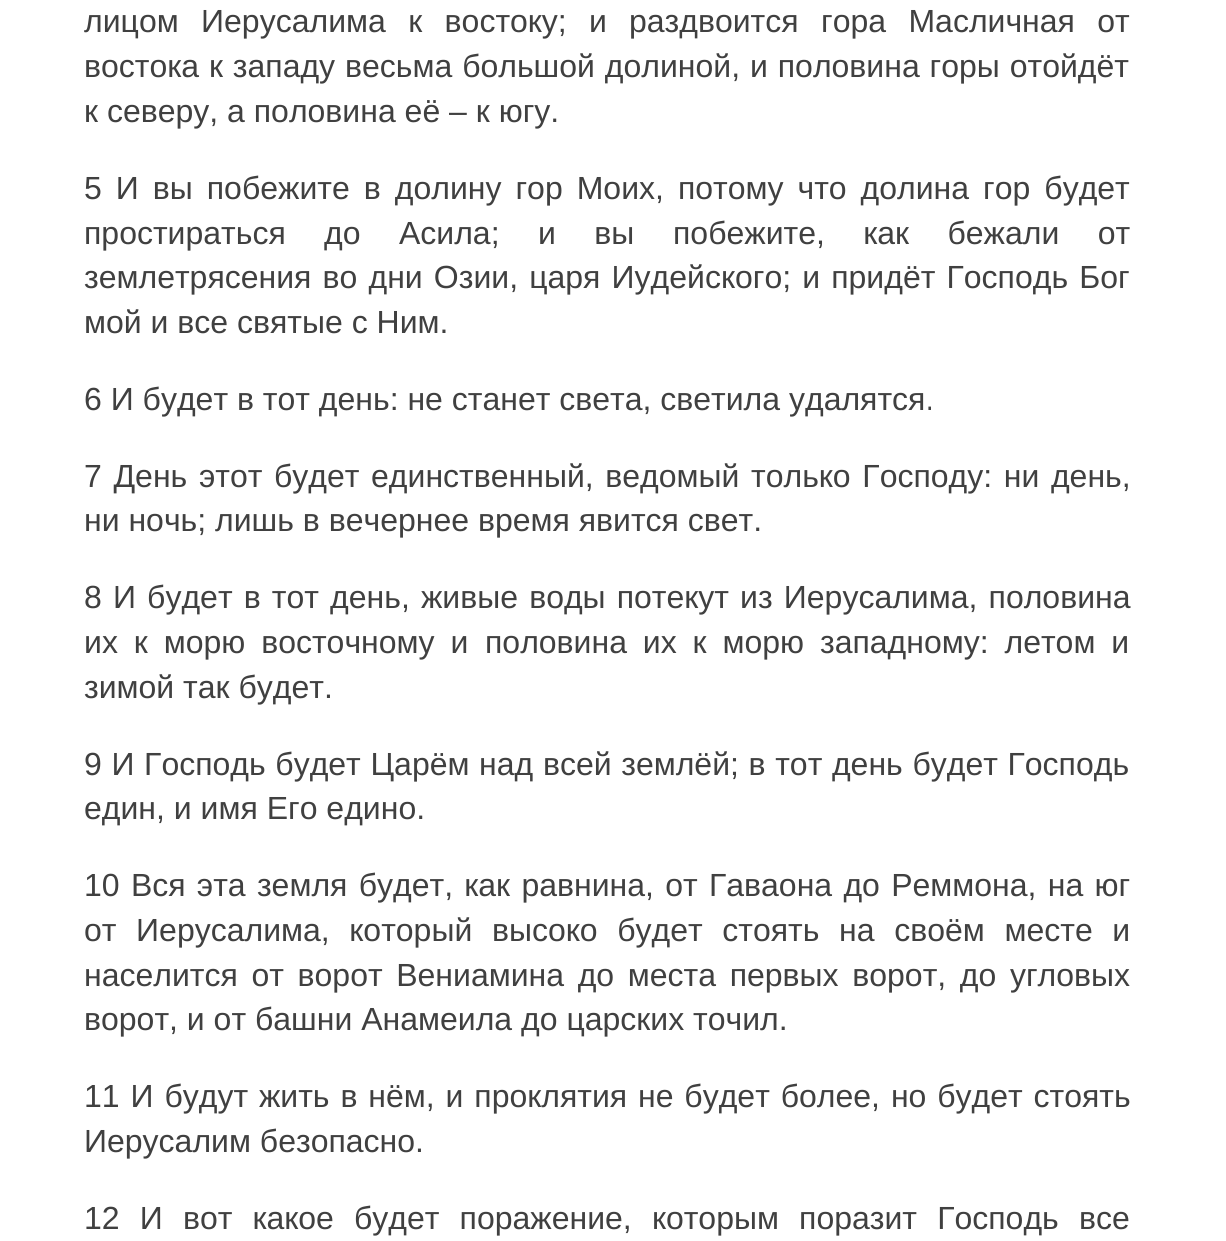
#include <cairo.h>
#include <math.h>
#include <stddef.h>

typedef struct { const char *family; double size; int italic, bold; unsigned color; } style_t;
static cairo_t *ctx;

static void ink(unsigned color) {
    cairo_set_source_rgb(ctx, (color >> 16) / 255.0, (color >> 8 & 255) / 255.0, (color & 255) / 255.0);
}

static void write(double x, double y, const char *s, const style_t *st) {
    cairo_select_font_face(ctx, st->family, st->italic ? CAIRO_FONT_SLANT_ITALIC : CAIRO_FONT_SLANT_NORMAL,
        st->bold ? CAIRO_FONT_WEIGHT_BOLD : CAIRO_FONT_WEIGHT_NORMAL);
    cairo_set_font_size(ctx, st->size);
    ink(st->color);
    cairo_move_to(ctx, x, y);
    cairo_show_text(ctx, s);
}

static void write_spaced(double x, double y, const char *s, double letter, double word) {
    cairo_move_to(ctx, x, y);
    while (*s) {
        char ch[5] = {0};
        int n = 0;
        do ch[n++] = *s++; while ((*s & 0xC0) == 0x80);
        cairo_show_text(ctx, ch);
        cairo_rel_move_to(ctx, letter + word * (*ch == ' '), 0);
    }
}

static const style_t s1 = {"Liberation Sans", 32, 0, 0, 0x404040};

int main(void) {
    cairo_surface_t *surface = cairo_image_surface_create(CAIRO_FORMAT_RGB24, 1226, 1241);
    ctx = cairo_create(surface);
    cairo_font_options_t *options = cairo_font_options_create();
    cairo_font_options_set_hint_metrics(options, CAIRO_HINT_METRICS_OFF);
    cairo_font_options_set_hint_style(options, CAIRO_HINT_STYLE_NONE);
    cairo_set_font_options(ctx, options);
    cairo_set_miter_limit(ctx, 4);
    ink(0xffffff);
    cairo_paint(ctx);
    cairo_select_font_face(ctx, "Liberation Sans", CAIRO_FONT_SLANT_NORMAL, CAIRO_FONT_WEIGHT_NORMAL);
    cairo_set_font_size(ctx, 32);
    ink(0x404040);
    write_spaced(84, 32, "лицом Иерусалима к востоку; и", 0, 13.5);
    write_spaced(629, 32, "раздвоится гора Масличная от", 0, 13.5);
    write_spaced(84, 77, "востока к западу весьма большой долиной, и половина горы отойдёт", 0, 1);
    write(84, 122, "к северу, а половина её – к югу.", &s1);
    write_spaced(84, 199, "5 И вы побежите в долину гор Моих, потому что долина гор будет", 0, 5.1);
    write_spaced(84, 244, "простираться до Асила; и вы", 0, 29.5);
    write_spaced(673, 244, "побежите, как бежали от", 0, 29.5);
    write_spaced(84, 288, "землетрясения во дни Озии, царя Иудейского; и придёт Господь Бог", 0, 2.25);
    write(84, 333, "мой и все святые с Ним.", &s1);
    write(84, 410, "6 И будет в тот день: не станет света, светила удалятся.", &s1);
    write_spaced(84, 487, "7 День этот будет единственный, ведомый только Господу: ни день,", 0, 2.75);
    write(84, 531, "ни ночь; лишь в вечернее время явится свет.", &s1);
    write_spaced(84, 608, "8 И будет в тот день, живые воды потекут из Иерусалима, половина", 0, 2.25);
    write_spaced(84, 653, "их к морю восточному и", 0, 7);
    write_spaced(485, 653, "половина их к морю западному: летом и", 0, 7);
    write(84, 698, "зимой так будет.", &s1);
    write_spaced(84, 775, "9 И Господь будет Царём над всей землёй; в тот день будет Господь", 0, 0.75);
    write(84, 819, "един, и имя Его едино.", &s1);
    write_spaced(84, 896, "10 Вся эта земля будет, как равнина, от Гаваона до Реммона, на юг", 0, 2.4);
    write_spaced(84, 941, "от Иерусалима, который", 0, 10.75);
    write_spaced(492, 941, "высоко будет стоять на своём месте и", 0, 10.75);
    write_spaced(84, 986, "населится от ворот Вениамина до места первых ворот, до угловых", 0, 4.75);
    write(84, 1030, "ворот, и от башни Анамеила до царских точил.", &s1);
    write_spaced(84, 1107, "11 И будут жить в нём, и проклятия не будет более, но будет стоять", 0, 2);
    write(84, 1152, "Иерусалим безопасно.", &s1);
    write_spaced(84, 1229, "12 И вот какое будет поражение, которым поразит Господь все", 0, 11.25);
    cairo_surface_write_to_png(surface, "screenshot.png");
    cairo_font_options_destroy(options);
    cairo_destroy(ctx);
    cairo_surface_destroy(surface);
    return 0;
}
